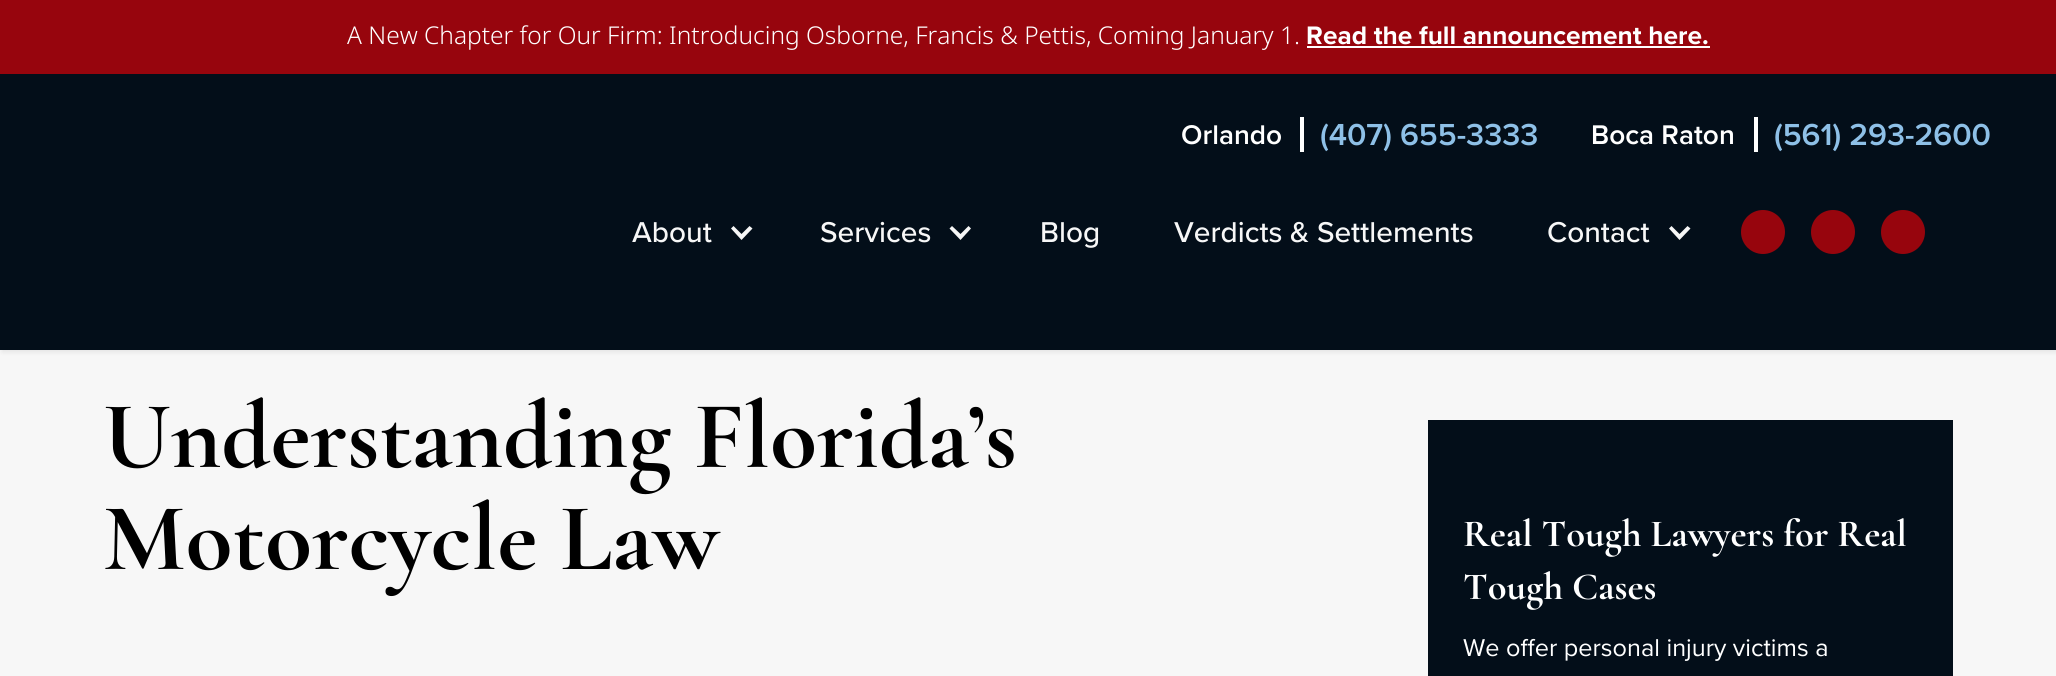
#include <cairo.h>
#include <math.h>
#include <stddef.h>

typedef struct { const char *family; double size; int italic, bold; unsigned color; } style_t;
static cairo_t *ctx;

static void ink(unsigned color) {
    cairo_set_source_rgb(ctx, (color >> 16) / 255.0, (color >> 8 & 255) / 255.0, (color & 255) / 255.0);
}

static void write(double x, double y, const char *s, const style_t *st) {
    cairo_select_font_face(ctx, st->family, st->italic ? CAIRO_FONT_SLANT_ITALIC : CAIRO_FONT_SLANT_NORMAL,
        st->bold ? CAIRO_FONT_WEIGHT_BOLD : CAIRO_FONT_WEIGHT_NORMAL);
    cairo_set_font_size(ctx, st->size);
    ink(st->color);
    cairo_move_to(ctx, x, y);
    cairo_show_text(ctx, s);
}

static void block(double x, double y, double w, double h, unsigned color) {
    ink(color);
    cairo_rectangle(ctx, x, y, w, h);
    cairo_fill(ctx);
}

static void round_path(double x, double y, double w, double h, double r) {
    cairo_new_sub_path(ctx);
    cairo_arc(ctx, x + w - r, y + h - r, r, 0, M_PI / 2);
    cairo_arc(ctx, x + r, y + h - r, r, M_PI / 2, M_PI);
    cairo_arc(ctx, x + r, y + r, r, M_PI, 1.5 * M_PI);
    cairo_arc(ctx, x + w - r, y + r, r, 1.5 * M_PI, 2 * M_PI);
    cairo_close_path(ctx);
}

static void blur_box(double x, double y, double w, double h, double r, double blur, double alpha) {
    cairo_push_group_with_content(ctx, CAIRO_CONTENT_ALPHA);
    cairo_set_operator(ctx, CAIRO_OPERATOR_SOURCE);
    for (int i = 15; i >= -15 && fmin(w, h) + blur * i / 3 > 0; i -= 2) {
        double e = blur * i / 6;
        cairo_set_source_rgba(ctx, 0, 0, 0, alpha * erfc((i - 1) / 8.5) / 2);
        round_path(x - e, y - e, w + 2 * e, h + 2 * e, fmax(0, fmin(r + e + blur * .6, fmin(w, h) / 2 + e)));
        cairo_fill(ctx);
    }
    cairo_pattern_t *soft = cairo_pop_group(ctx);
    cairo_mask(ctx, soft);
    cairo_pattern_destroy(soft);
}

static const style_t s1 = {"Noto Sans Light", 24.5, 0, 0, 0xffffff};
static const style_t s2 = {"Proxima Nova", 26.25, 0, 1, 0xffffff};
static const style_t s3 = {"Proxima Nova SemiBold", 28, 0, 0, 0xffffff};
static const style_t s4 = {"Proxima Nova SemiBold", 31.5, 0, 0, 0x8ec0e7};
static const style_t s5 = {"Proxima Nova Medium", 29.75, 0, 0, 0xf7f7f7};
static const style_t s6 = {"Cormorant Garamond", 96.25, 0, 1, 0x000000};
static const style_t s7 = {"Cormorant Garamond", 38.5, 0, 1, 0xffffff};
static const style_t s8 = {"Proxima Nova", 25.25, 0, 0, 0xffffff};

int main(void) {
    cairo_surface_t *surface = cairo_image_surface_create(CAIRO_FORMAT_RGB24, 2056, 676);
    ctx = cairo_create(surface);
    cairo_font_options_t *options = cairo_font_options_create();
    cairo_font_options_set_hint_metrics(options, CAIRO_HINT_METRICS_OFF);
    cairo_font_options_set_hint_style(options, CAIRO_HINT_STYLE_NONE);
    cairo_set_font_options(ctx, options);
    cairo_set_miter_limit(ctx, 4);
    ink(0xf7f7f7);
    cairo_paint(ctx);
    ink(0x000000);
    blur_box(2, 2, 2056, 350, 0, 2.5, 0.08);
    block(0, 74, 2056, 276, 0x030e19);
    block(0, 0, 2056, 74, 0x97050d);
    write(347, 44, "A New Chapter for Our Firm: Introducing Osborne, Francis & Pettis, Coming January 1.", &s1);
    write(1306, 44, "Read the full announcement here.", &s2);
    block(1307, 46, 403, 2, 0xffffff);
    block(1300, 117, 4, 35, 0xffffff);
    write(1181, 144, "Orlando", &s3);
    write(1320, 145, "(407) 655-3333", &s4);
    block(1754, 117, 4, 35, 0xffffff);
    write(1591, 144, "Boca Raton", &s3);
    write(1774, 145, "(561) 293-2600", &s4);
    write(632, 242, "About", &s5);
    cairo_new_path(ctx);
    cairo_move_to(ctx, 749.5, 226);
    cairo_line_to(ctx, 741.5, 234);
    cairo_line_to(ctx, 733.5, 226);
    cairo_line_to(ctx, 731, 228.5);
    cairo_line_to(ctx, 741.5, 240);
    cairo_line_to(ctx, 752.5, 228.5);
    cairo_close_path(ctx);
    cairo_fill(ctx);
    write(820, 242, "Services", &s5);
    cairo_new_path(ctx);
    cairo_move_to(ctx, 968.5, 226);
    cairo_line_to(ctx, 960.5, 234);
    cairo_line_to(ctx, 952, 226);
    cairo_line_to(ctx, 949.5, 228.5);
    cairo_line_to(ctx, 960.5, 240);
    cairo_line_to(ctx, 971, 228.5);
    cairo_close_path(ctx);
    cairo_fill(ctx);
    write(1040, 242, "Blog", &s5);
    write(1174, 242, "Verdicts & Settlements", &s5);
    write(1547, 242, "Contact", &s5);
    cairo_new_path(ctx);
    cairo_move_to(ctx, 1687.5, 226);
    cairo_line_to(ctx, 1679.5, 234);
    cairo_line_to(ctx, 1671.5, 226);
    cairo_line_to(ctx, 1669, 228.5);
    cairo_line_to(ctx, 1679.5, 240);
    cairo_line_to(ctx, 1690.5, 228.5);
    cairo_close_path(ctx);
    cairo_fill(ctx);
    ink(0x97050d);
    cairo_arc(ctx, 1763, 232, 22, 0, 2 * M_PI);
    cairo_fill(ctx);
    cairo_arc(ctx, 1833, 232, 22, 0, 2 * M_PI);
    cairo_fill(ctx);
    cairo_arc(ctx, 1903, 232, 22, 0, 2 * M_PI);
    cairo_fill(ctx);
    write(103, 467, "Understanding Florida’s", &s6);
    write(103, 569, "Motorcycle Law", &s6);
    block(1428, 420, 525, 256, 0x030e19);
    write(1463, 546, "Real Tough Lawyers for Real", &s7);
    write(1463, 599, "Tough Cases", &s7);
    write(1463, 656, "We offer personal injury victims a", &s8);
    cairo_surface_write_to_png(surface, "screenshot.png");
    cairo_font_options_destroy(options);
    cairo_destroy(ctx);
    cairo_surface_destroy(surface);
    return 0;
}
